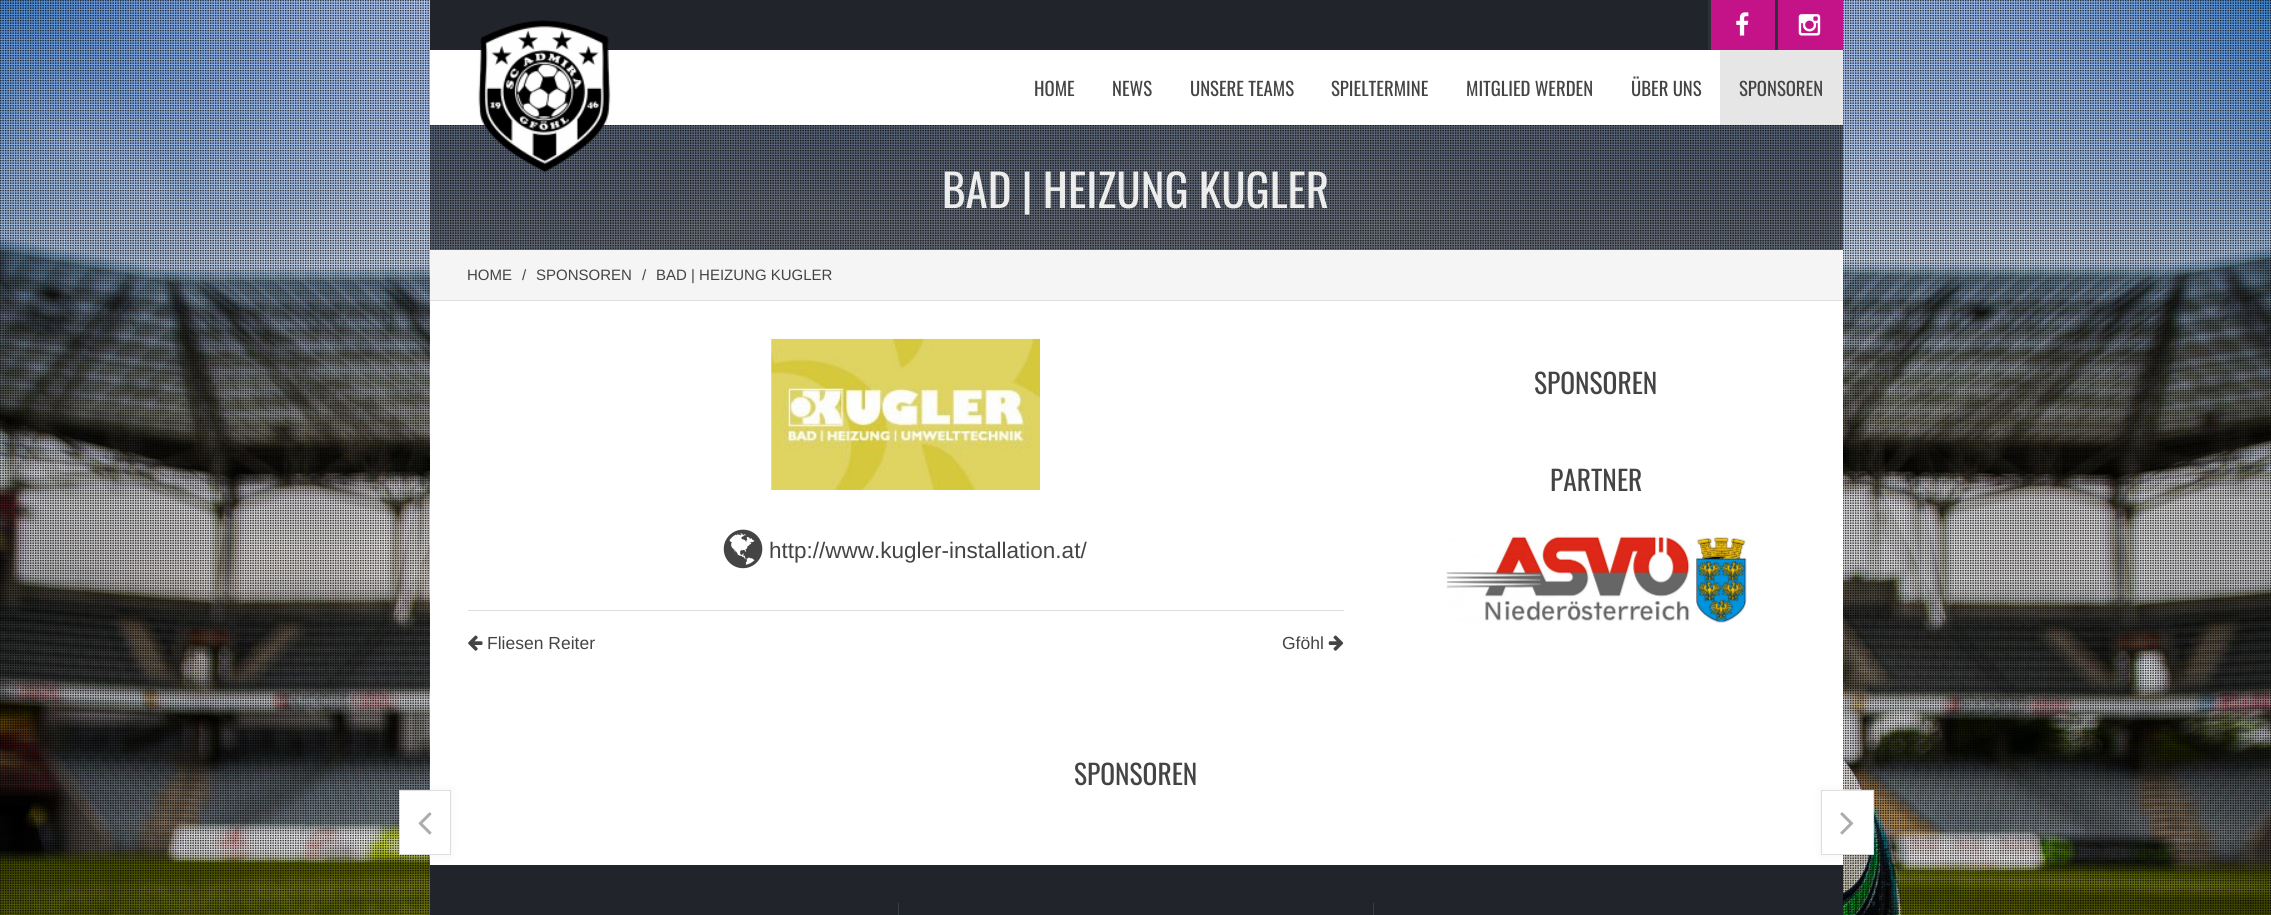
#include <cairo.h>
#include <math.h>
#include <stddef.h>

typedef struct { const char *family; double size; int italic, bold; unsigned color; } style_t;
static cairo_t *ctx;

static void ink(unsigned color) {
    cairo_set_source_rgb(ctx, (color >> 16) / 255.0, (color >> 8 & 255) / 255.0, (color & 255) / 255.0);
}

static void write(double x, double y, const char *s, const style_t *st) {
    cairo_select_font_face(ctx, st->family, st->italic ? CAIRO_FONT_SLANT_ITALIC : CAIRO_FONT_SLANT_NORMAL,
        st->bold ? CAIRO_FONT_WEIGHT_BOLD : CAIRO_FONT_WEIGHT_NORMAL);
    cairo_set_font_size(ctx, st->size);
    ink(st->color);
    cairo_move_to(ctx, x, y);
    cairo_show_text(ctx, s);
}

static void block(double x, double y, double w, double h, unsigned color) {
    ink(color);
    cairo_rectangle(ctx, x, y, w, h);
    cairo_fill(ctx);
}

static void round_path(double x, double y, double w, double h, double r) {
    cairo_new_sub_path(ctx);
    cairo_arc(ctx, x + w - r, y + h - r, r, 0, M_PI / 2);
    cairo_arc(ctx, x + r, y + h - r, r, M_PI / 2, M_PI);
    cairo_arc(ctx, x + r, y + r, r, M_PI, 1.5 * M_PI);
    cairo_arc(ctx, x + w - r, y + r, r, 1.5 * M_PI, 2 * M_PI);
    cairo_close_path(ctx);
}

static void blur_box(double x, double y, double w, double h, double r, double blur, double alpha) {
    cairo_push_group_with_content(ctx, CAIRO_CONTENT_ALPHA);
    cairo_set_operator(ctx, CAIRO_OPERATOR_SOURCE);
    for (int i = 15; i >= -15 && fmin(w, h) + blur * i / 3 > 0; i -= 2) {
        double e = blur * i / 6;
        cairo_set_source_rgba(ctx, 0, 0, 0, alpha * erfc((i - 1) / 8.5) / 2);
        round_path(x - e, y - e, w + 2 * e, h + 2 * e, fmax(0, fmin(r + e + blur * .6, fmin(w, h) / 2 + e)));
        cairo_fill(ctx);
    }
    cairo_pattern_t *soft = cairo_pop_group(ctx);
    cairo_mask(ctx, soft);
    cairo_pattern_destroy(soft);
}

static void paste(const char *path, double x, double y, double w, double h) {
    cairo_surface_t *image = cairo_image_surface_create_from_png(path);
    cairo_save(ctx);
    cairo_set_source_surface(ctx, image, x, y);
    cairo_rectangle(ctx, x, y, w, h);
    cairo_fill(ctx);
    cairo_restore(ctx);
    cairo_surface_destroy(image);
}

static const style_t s1 = {"Oswald", 18.75, 0, 0, 0x444444};
static const style_t s2 = {"Oswald", 45, 0, 0, 0xededee};
static const style_t s3 = {"Liberation Sans", 15, 0, 0, 0x444444};
static const style_t s4 = {"Oswald", 27.5, 0, 0, 0x444444};
static const style_t s5 = {"Liberation Sans", 22.5, 0, 0, 0x444444};
static const style_t s6 = {"Liberation Sans", 17.5, 0, 0, 0x444444};

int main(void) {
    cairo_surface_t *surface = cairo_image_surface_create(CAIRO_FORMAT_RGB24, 2271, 915);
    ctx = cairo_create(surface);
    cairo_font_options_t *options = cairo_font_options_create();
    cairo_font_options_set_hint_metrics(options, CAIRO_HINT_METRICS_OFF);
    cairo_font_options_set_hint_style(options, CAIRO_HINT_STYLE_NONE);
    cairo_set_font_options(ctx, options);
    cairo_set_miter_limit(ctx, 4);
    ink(0xffffff);
    cairo_paint(ctx);
    paste("pic1.png", 0, 0, 2271, 915);
    block(430, 0, 1278, 50, 0x21252b);
    block(1711, 0, 132, 50, 0xc41289);
    block(1708, 0, 3, 50, 0x2c3139);
    paste("pic2.png", 1736, 12, 13, 24);
    block(1775, 0, 3, 50, 0x2c3139);
    paste("pic3.png", 1798, 14, 23, 22);
    block(430, 50, 1290, 75, 0xffffff);
    cairo_set_source_rgba(ctx, 0, 0, 0, 0.5);
    cairo_rectangle(ctx, 430, 125, 1413, 125);
    cairo_fill(ctx);
    paste("pic4.png", 478, 20, 133, 153);
    write(1034, 96, "HOME", &s1);
    write(1112, 96, "NEWS", &s1);
    write(1190, 96, "UNSERE TEAMS", &s1);
    write(1331, 96, "SPIELTERMINE", &s1);
    write(1466, 96, "MITGLIED WERDEN", &s1);
    write(1631, 96, "ÜBER UNS", &s1);
    block(1720, 50, 123, 75, 0xe6e6e6);
    write(1739, 96, "SPONSOREN", &s1);
    write(942, 208, "BAD | HEIZUNG KUGLER", &s2);
    block(430, 250, 1413, 50, 0xf5f5f5);
    block(430, 300, 1413, 1, 0xdddddd);
    write(467, 280, "HOME", &s3);
    write(522, 280, "/", &s3);
    write(536, 280, "SPONSOREN", &s3);
    write(642, 280, "/", &s3);
    write(656, 280, "BAD | HEIZUNG KUGLER", &s3);
    block(430, 301, 1413, 564, 0xffffff);
    write(1534, 394, "SPONSOREN", &s4);
    write(1550, 491, "PARTNER", &s4);
    paste("pic5.png", 1446, 536, 301, 87);
    paste("pic6.png", 771, 338, 269, 152);
    paste("pic7.png", 723, 529, 40, 40);
    write(769, 558, "http://www.kugler-installation.at/", &s5);
    block(468, 610, 876, 1, 0xdddddd);
    paste("pic8.png", 468, 635, 15, 16);
    write(487, 649, "Fliesen Reiter", &s6);
    write(1282, 649, "Gföhl", &s6);
    paste("pic9.png", 1328, 635, 16, 16);
    write(1074, 785, "SPONSOREN", &s4);
    block(430, 865, 1413, 50, 0x21252b);
    ink(0x000000);
    blur_box(399, 790, 52, 65, 0, 4.5, 0.05);
    ink(0xffffff);
    cairo_rectangle(ctx, 399.5, 790.5, 51, 64);
    cairo_fill_preserve(ctx);
    ink(0xdddddd);
    cairo_set_line_width(ctx, 1);
    cairo_stroke(ctx);
    paste("pic10.png", 418, 812, 14, 23);
    ink(0x000000);
    blur_box(1821, 790, 53, 65, 0, 4.5, 0.05);
    ink(0xffffff);
    cairo_rectangle(ctx, 1821.5, 790.5, 52, 64);
    cairo_fill_preserve(ctx);
    ink(0xdddddd);
    cairo_stroke(ctx);
    paste("pic11.png", 1840, 812, 14, 23);
    block(898, 903, 1, 12, 0x373e48);
    block(1373, 903, 1, 12, 0x373e48);
    cairo_surface_write_to_png(surface, "screenshot.png");
    cairo_font_options_destroy(options);
    cairo_destroy(ctx);
    cairo_surface_destroy(surface);
    return 0;
}
